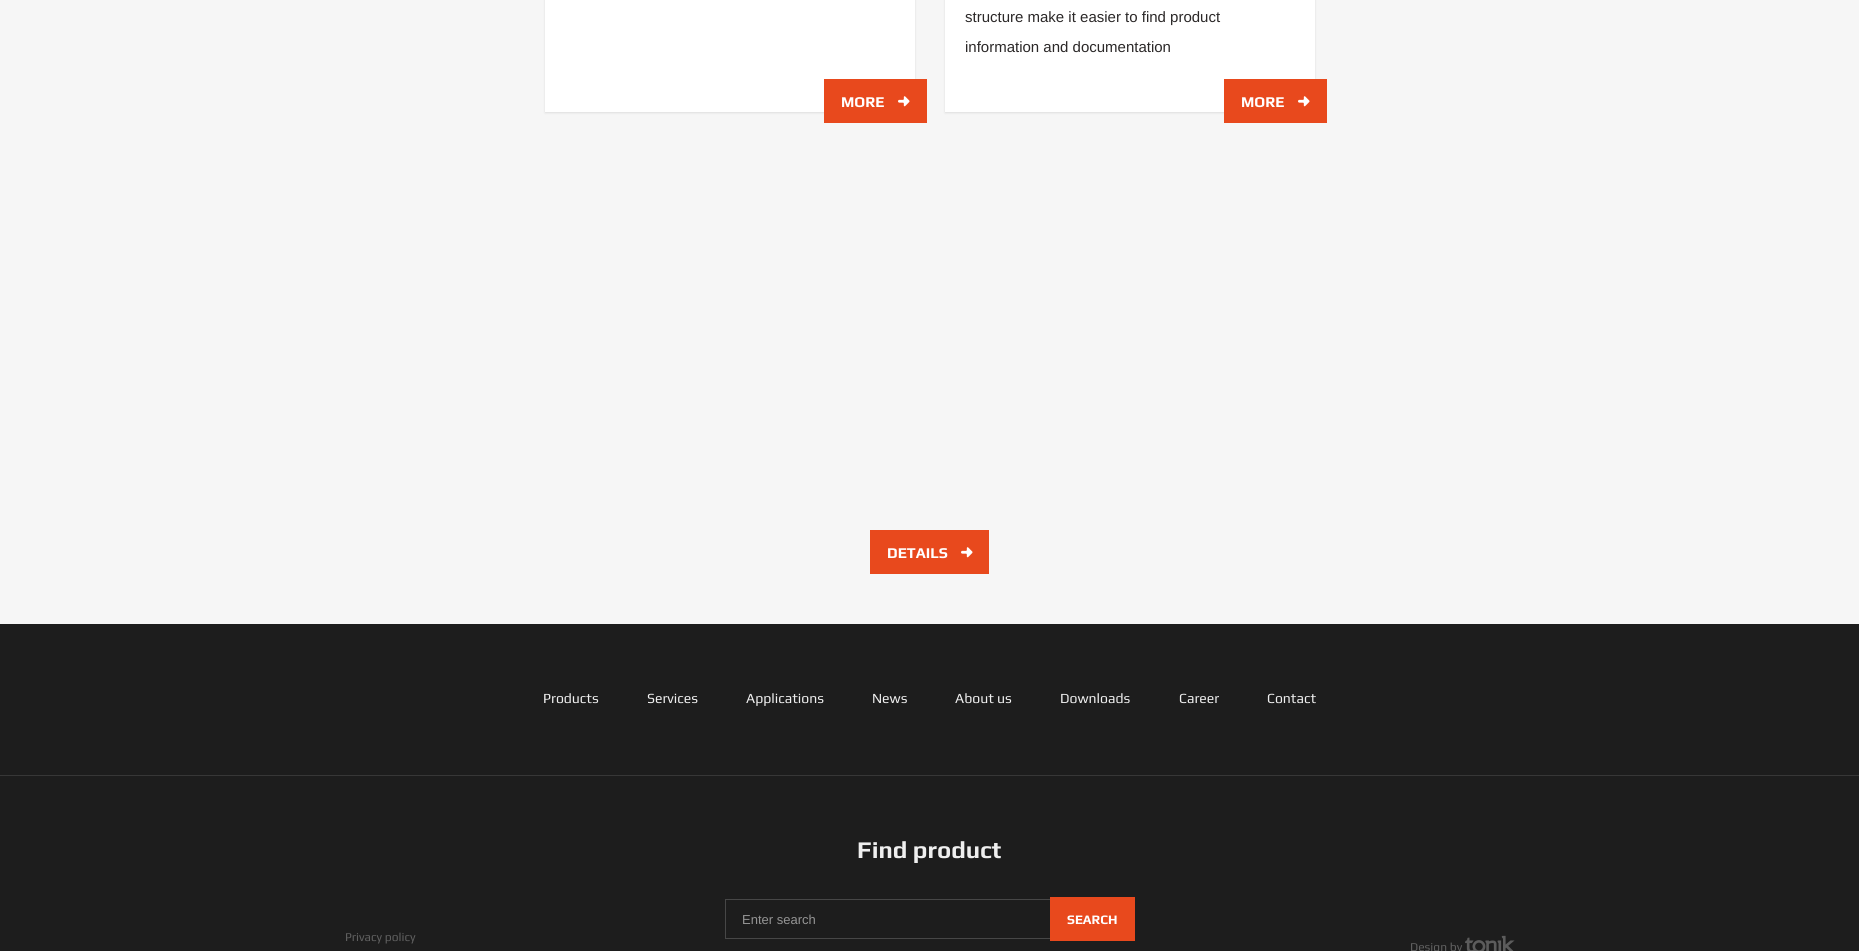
#include <cairo.h>
#include <math.h>
#include <stddef.h>

typedef struct { const char *family; double size; int italic, bold; unsigned color; } style_t;
static cairo_t *ctx;

static void ink(unsigned color) {
    cairo_set_source_rgb(ctx, (color >> 16) / 255.0, (color >> 8 & 255) / 255.0, (color & 255) / 255.0);
}

static void write(double x, double y, const char *s, const style_t *st) {
    cairo_select_font_face(ctx, st->family, st->italic ? CAIRO_FONT_SLANT_ITALIC : CAIRO_FONT_SLANT_NORMAL,
        st->bold ? CAIRO_FONT_WEIGHT_BOLD : CAIRO_FONT_WEIGHT_NORMAL);
    cairo_set_font_size(ctx, st->size);
    ink(st->color);
    cairo_move_to(ctx, x, y);
    cairo_show_text(ctx, s);
}

static void block(double x, double y, double w, double h, unsigned color) {
    ink(color);
    cairo_rectangle(ctx, x, y, w, h);
    cairo_fill(ctx);
}

static void round_path(double x, double y, double w, double h, double r) {
    cairo_new_sub_path(ctx);
    cairo_arc(ctx, x + w - r, y + h - r, r, 0, M_PI / 2);
    cairo_arc(ctx, x + r, y + h - r, r, M_PI / 2, M_PI);
    cairo_arc(ctx, x + r, y + r, r, M_PI, 1.5 * M_PI);
    cairo_arc(ctx, x + w - r, y + r, r, 1.5 * M_PI, 2 * M_PI);
    cairo_close_path(ctx);
}

static void blur_box(double x, double y, double w, double h, double r, double blur, double alpha) {
    cairo_push_group_with_content(ctx, CAIRO_CONTENT_ALPHA);
    cairo_set_operator(ctx, CAIRO_OPERATOR_SOURCE);
    for (int i = 15; i >= -15 && fmin(w, h) + blur * i / 3 > 0; i -= 2) {
        double e = blur * i / 6;
        cairo_set_source_rgba(ctx, 0, 0, 0, alpha * erfc((i - 1) / 8.5) / 2);
        round_path(x - e, y - e, w + 2 * e, h + 2 * e, fmax(0, fmin(r + e + blur * .6, fmin(w, h) / 2 + e)));
        cairo_fill(ctx);
    }
    cairo_pattern_t *soft = cairo_pop_group(ctx);
    cairo_mask(ctx, soft);
    cairo_pattern_destroy(soft);
}

static void paste(const char *path, double x, double y, double w, double h) {
    cairo_surface_t *image = cairo_image_surface_create_from_png(path);
    cairo_save(ctx);
    cairo_set_source_surface(ctx, image, x, y);
    cairo_rectangle(ctx, x, y, w, h);
    cairo_fill(ctx);
    cairo_restore(ctx);
    cairo_surface_destroy(image);
}

static const style_t s1 = {"Play", 15, 0, 1, 0xffffff};
static const style_t s2 = {"Liberation Sans", 15, 0, 0, 0x2b2828};
static const style_t s3 = {"Play", 14, 0, 0, 0xefefef};
static const style_t s4 = {"Play", 24, 0, 1, 0xefefef};
static const style_t s5 = {"Liberation Sans", 13, 0, 0, 0x949494};
static const style_t s6 = {"Play", 13, 0, 1, 0xffffff};
static const style_t s7 = {"Play", 12, 0, 0, 0x606060};

int main(void) {
    cairo_surface_t *surface = cairo_image_surface_create(CAIRO_FORMAT_RGB24, 1859, 951);
    ctx = cairo_create(surface);
    cairo_font_options_t *options = cairo_font_options_create();
    cairo_font_options_set_hint_metrics(options, CAIRO_HINT_METRICS_OFF);
    cairo_font_options_set_hint_style(options, CAIRO_HINT_STYLE_NONE);
    cairo_set_font_options(ctx, options);
    cairo_set_miter_limit(ctx, 4);
    ink(0x1d1d1d);
    cairo_paint(ctx);
    block(0, 0, 1859, 624, 0xf6f6f6);
    ink(0x000000);
    blur_box(545, -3, 370, 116, 0, 1, 0.1);
    block(545, 0, 370, 112, 0xffffff);
    block(824, 79, 103, 44, 0xe8491d);
    write(841, 107, "MORE", &s1);
    paste("pic1.png", 898, 96, 12, 11);
    ink(0x000000);
    blur_box(945, -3, 370, 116, 0, 1, 0.1);
    block(945, 0, 370, 112, 0xffffff);
    write(965, 22, "structure make it easier to find product", &s2);
    write(965, 52, "information and documentation", &s2);
    block(1224, 79, 103, 44, 0xe8491d);
    write(1241, 107, "MORE", &s1);
    paste("pic1.png", 1298, 96, 12, 11);
    block(870, 530, 119, 44, 0xe8491d);
    write(887, 558, "DETAILS", &s1);
    paste("pic1.png", 961, 547, 12, 11);
    block(0, 775, 1859, 1, 0x373737);
    write(543, 703, "Products", &s3);
    write(647, 703, "Services", &s3);
    write(746, 703, "Applications", &s3);
    write(872, 703, "News", &s3);
    write(955, 703, "About us", &s3);
    write(1060, 703, "Downloads", &s3);
    write(1179, 703, "Career", &s3);
    write(1267, 703, "Contact", &s3);
    write(857, 858, "Find product", &s4);
    cairo_rectangle(ctx, 725.5, 899.5, 325, 39);
    ink(0x474747);
    cairo_set_line_width(ctx, 1);
    cairo_stroke(ctx);
    write(742, 924, "Enter search", &s5);
    block(1050, 897, 85, 44, 0xe8491d);
    write(1067, 924, "SEARCH", &s6);
    write(345, 941, "Privacy policy", &s7);
    write(1410, 951, "Design by", &s7);
    paste("pic2.png", 1465, 935, 50, 16);
    cairo_surface_write_to_png(surface, "screenshot.png");
    cairo_font_options_destroy(options);
    cairo_destroy(ctx);
    cairo_surface_destroy(surface);
    return 0;
}
